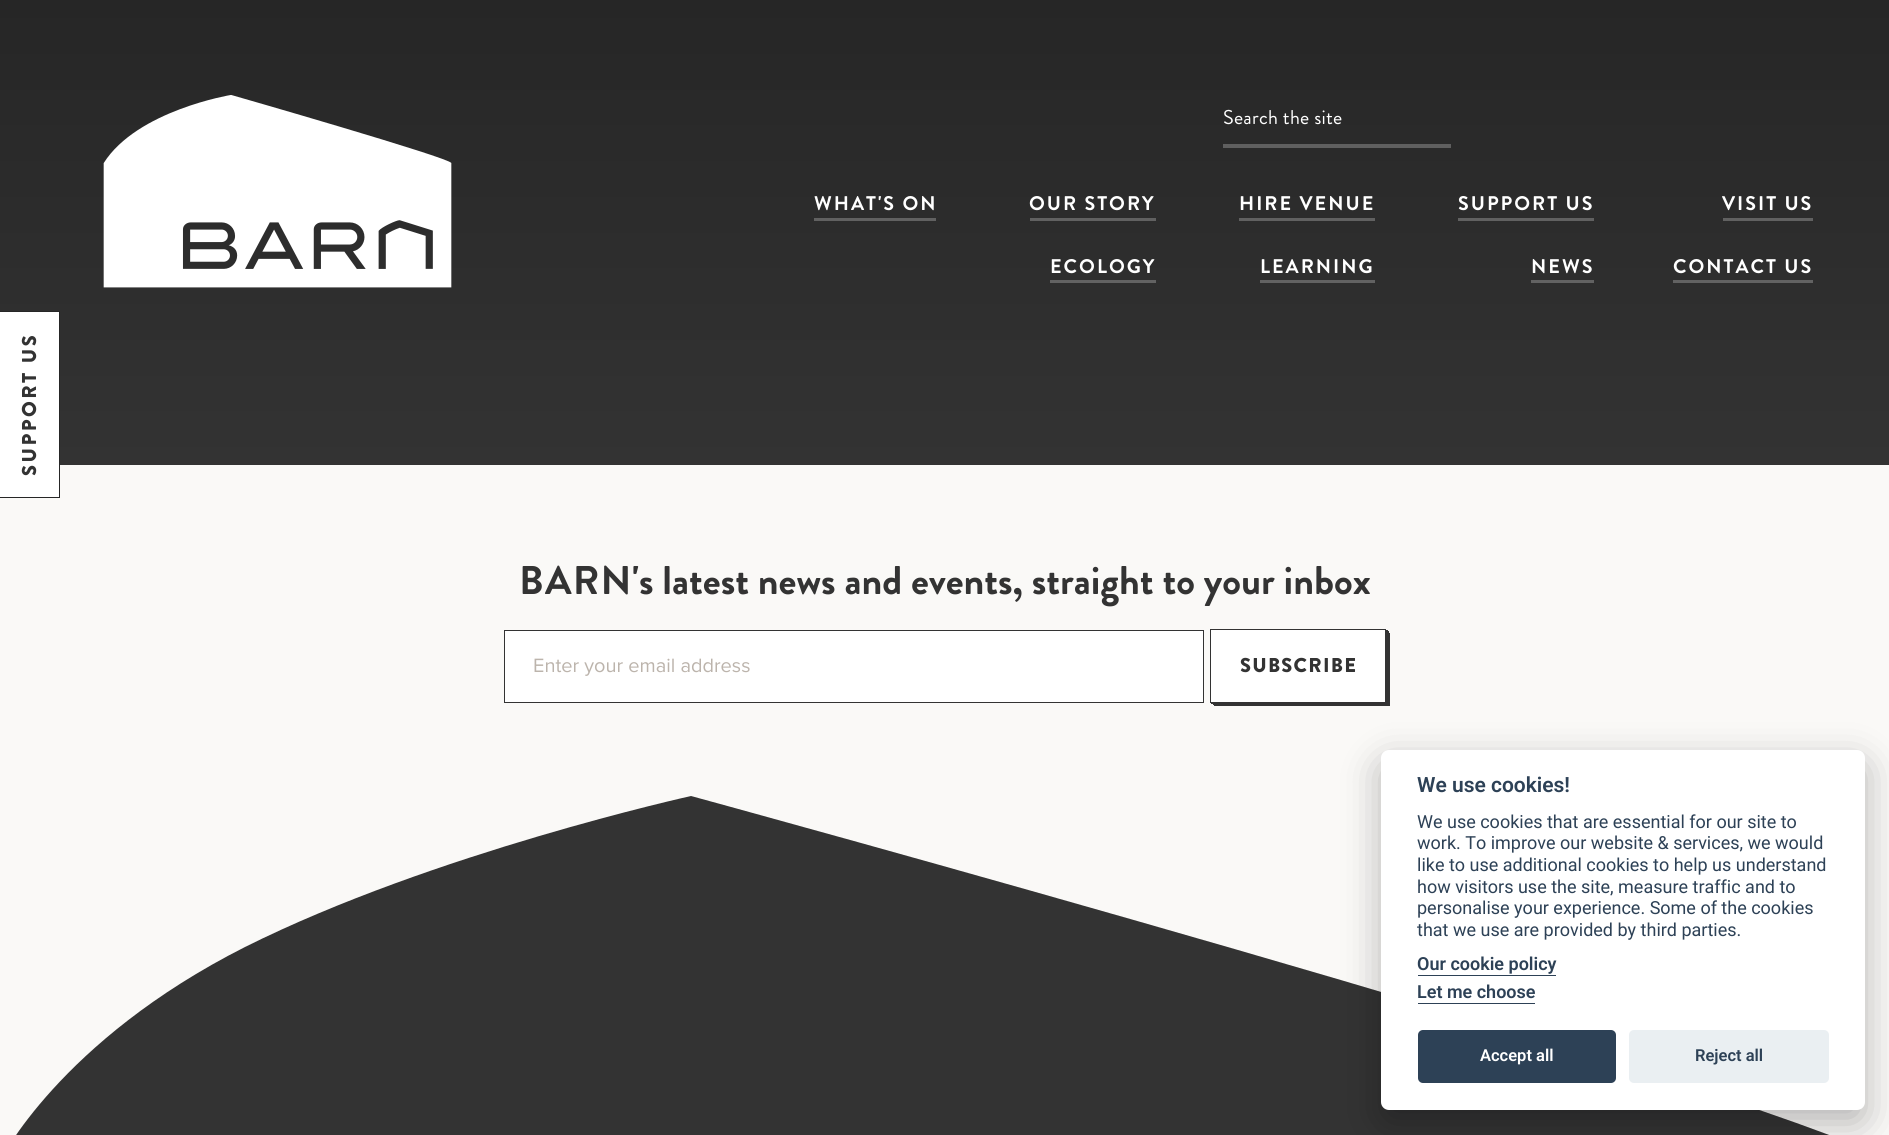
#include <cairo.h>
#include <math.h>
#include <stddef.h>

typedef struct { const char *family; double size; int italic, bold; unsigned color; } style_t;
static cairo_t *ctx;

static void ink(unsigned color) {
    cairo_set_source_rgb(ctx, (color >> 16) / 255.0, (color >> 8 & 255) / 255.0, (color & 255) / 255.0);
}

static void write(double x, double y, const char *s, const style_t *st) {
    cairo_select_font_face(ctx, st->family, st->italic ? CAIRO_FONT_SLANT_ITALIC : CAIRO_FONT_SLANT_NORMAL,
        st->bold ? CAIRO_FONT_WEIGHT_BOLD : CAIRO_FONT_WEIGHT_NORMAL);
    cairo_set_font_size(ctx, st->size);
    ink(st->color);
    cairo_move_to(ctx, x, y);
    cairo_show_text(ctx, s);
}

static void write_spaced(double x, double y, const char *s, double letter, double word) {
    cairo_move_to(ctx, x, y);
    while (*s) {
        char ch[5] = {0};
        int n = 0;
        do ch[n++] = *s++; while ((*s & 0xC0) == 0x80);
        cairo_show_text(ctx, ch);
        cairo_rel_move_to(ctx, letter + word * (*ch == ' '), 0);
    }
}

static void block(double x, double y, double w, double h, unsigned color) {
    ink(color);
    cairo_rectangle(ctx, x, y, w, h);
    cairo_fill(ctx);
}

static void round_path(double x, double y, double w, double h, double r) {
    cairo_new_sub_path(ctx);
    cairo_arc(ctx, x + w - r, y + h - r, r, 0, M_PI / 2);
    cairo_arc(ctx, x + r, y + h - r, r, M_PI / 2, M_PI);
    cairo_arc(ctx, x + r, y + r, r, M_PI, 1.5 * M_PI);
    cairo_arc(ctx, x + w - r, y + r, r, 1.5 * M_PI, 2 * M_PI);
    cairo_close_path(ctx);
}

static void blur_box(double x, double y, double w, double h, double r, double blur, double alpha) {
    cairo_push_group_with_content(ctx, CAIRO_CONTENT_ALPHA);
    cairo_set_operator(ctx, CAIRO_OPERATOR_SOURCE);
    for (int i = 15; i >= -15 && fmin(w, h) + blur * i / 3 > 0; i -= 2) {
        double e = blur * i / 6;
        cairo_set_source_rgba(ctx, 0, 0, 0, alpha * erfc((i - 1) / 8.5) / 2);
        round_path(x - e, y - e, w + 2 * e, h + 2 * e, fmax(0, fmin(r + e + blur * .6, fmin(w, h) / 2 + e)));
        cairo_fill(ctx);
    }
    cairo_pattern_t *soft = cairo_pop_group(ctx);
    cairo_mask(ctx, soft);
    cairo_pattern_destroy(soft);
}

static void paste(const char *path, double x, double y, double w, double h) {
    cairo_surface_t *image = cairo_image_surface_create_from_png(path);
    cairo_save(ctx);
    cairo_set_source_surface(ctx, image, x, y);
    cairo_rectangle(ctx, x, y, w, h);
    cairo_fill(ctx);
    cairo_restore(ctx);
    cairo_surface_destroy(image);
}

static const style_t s1 = {"Brandon Grotesque", 40, 0, 1, 0x333333};
static const style_t s2 = {"Proxima Nova", 20, 0, 0, 0xbcb4ac};
static const style_t s3 = {"Roboto SemiBold", 21, 0, 0, 0x2d4156};
static const style_t s4 = {"Roboto", 18, 0, 0, 0x2d4156};
static const style_t s5 = {"Roboto SemiBold", 18, 0, 0, 0x2d4156};
static const style_t s6 = {"Roboto SemiBold", 16.5, 0, 0, 0xffffff};
static const style_t s7 = {"Roboto SemiBold", 16.5, 0, 0, 0x2d4156};

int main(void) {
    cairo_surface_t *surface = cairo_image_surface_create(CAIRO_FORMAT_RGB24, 1889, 1135);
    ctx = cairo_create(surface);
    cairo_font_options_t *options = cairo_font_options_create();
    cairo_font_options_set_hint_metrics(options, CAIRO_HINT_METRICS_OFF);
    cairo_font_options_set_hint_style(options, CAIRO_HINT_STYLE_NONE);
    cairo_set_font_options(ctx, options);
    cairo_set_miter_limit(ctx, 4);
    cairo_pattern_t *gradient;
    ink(0xfaf9f7);
    cairo_paint(ctx);
    gradient = cairo_pattern_create_linear(945, 0, 945, 465);
    cairo_pattern_add_color_stop_rgba(gradient, 0, 0.149, 0.149, 0.149, 1);
    cairo_pattern_add_color_stop_rgba(gradient, 1, 0.2, 0.2, 0.2, 1);
    cairo_set_source(ctx, gradient);
    cairo_pattern_destroy(gradient);
    cairo_rectangle(ctx, 0, 0, 1889, 465);
    cairo_fill(ctx);
    block(1223, 144, 228, 4, 0x5f5f5f);
    cairo_select_font_face(ctx, "Brandon Grotesque", CAIRO_FONT_SLANT_NORMAL, CAIRO_FONT_WEIGHT_NORMAL);
    cairo_set_font_size(ctx, 20);
    ink(0xffffff);
    write_spaced(1223, 124, "Search the site", 0.25, 0);
    cairo_select_font_face(ctx, "Brandon Grotesque", CAIRO_FONT_SLANT_NORMAL, CAIRO_FONT_WEIGHT_BOLD);
    cairo_set_font_size(ctx, 19.75);
    write_spaced(814, 210, "WHAT'S ON", 2, 0);
    block(814, 218, 122, 3, 0x616161);
    ink(0xffffff);
    write_spaced(1029, 210, "OUR STORY", 2, 0);
    block(1030, 218, 126, 3, 0x616161);
    ink(0xffffff);
    write_spaced(1239, 210, "HIRE VENUE", 2, 0);
    block(1239, 218, 136, 3, 0x616161);
    ink(0xffffff);
    write_spaced(1458, 210, "SUPPORT US", 2, 0);
    block(1458, 218, 136, 3, 0x616161);
    ink(0xffffff);
    write_spaced(1722, 210, "VISIT US", 2, 0);
    block(1723, 218, 90, 3, 0x616161);
    ink(0xffffff);
    write_spaced(1050, 273, "ECOLOGY", 2, 0);
    block(1050, 280, 106, 3, 0x626262);
    ink(0xffffff);
    write_spaced(1260, 273, "LEARNING", 2, 0);
    block(1260, 280, 115, 3, 0x626262);
    ink(0xffffff);
    write_spaced(1531, 273, "NEWS", 2, 0);
    block(1531, 280, 63, 3, 0x626262);
    ink(0xffffff);
    write_spaced(1673, 273, "CONTACT US", 2, 0);
    block(1673, 280, 140, 3, 0x626262);
    block(0, 312, 59, 185, 0xffffff);
    block(0, 311, 60, 1, 0x262626);
    block(59, 311, 1, 187, 0x262626);
    block(0, 497, 60, 1, 0x262626);
    cairo_select_font_face(ctx, "Brandon Grotesque Black", CAIRO_FONT_SLANT_NORMAL, CAIRO_FONT_WEIGHT_NORMAL);
    cairo_set_font_size(ctx, 20);
    ink(0x333333);
    cairo_save(ctx);
    cairo_translate(ctx, 36, 476);
    cairo_rotate(ctx, -90 * M_PI / 180);
    write_spaced(0, 0, "SUPPORT US", 2.5, 0);
    cairo_restore(ctx);
    paste("pic1.png", 103, 95, 349, 193);
    cairo_select_font_face(ctx, "Brandon Grotesque", CAIRO_FONT_SLANT_NORMAL, CAIRO_FONT_WEIGHT_BOLD);
    cairo_set_font_size(ctx, 40);
    write_spaced(519, 594, "BARN", 1.25, 0);
    write(632, 594, "'s latest news and events, straight to your inbox", &s1);
    ink(0xffffff);
    cairo_rectangle(ctx, 504.5, 630.5, 699, 72);
    cairo_fill_preserve(ctx);
    ink(0x333333);
    cairo_set_line_width(ctx, 1);
    cairo_stroke(ctx);
    write(533, 672, "Enter your email address", &s2);
    ink(0x333333);
    cairo_new_path(ctx);
    cairo_move_to(ctx, 1214, 702);
    cairo_line_to(ctx, 1214, 706);
    cairo_line_to(ctx, 1390, 706);
    cairo_line_to(ctx, 1390, 633);
    cairo_line_to(ctx, 1386, 633);
    cairo_line_to(ctx, 1386, 702);
    cairo_close_path(ctx);
    cairo_fill(ctx);
    cairo_new_path(ctx);
    cairo_move_to(ctx, 1213, 702);
    cairo_line_to(ctx, 1213, 705);
    cairo_line_to(ctx, 1389, 705);
    cairo_line_to(ctx, 1389, 631);
    cairo_line_to(ctx, 1386, 631);
    cairo_line_to(ctx, 1386, 702);
    cairo_close_path(ctx);
    cairo_fill(ctx);
    cairo_new_path(ctx);
    cairo_move_to(ctx, 1211, 702);
    cairo_line_to(ctx, 1211, 704);
    cairo_line_to(ctx, 1388, 704);
    cairo_line_to(ctx, 1388, 630);
    cairo_line_to(ctx, 1386, 630);
    cairo_line_to(ctx, 1386, 702);
    cairo_close_path(ctx);
    cairo_fill(ctx);
    ink(0xffffff);
    cairo_rectangle(ctx, 1210.5, 629.5, 175, 73);
    cairo_fill_preserve(ctx);
    ink(0x333333);
    cairo_stroke(ctx);
    cairo_select_font_face(ctx, "Brandon Grotesque Black", CAIRO_FONT_SLANT_NORMAL, CAIRO_FONT_WEIGHT_NORMAL);
    write_spaced(1240, 672, "SUBSCRIBE", 1.25, 0);
    cairo_new_path(ctx);
    cairo_move_to(ctx, 0, 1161);
    cairo_line_to(ctx, 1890, 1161);
    cairo_curve_to(ctx, 1743, 1083, 691, 796, 691, 796);
    cairo_curve_to(ctx, 691, 796, 433, 853, 245, 947);
    cairo_curve_to(ctx, 59, 1041, 0, 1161, 0, 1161);
    cairo_close_path(ctx);
    cairo_fill(ctx);
    ink(0x020203);
    blur_box(1381, 763, 484, 360, 8, 19, 0.28);
    ink(0xffffff);
    round_path(1381, 750, 484, 360, 8);
    cairo_fill(ctx);
    write(1417, 792, "We use cookies!", &s3);
    write(1417, 828, "We use cookies that are essential for our site to", &s4);
    write(1417, 849, "work. To improve our website & services, we would", &s4);
    write(1417, 871, "like to use additional cookies to help us understand", &s4);
    write(1417, 893, "how visitors use the site, measure traffic and to", &s4);
    write(1417, 914, "personalise your experience. Some of the cookies", &s4);
    write(1417, 936, "that we use are provided by third parties.", &s4);
    block(1418, 975, 138, 1, 0x2d4156);
    write(1417, 970, "Our cookie policy", &s5);
    block(1418, 1003, 117, 1, 0x2d4156);
    write(1417, 998, "Let me choose", &s5);
    round_path(1418, 1030, 198, 53, 5);
    cairo_fill(ctx);
    write(1480, 1061, "Accept all", &s6);
    ink(0xeaeff2);
    round_path(1629, 1030, 200, 53, 5);
    cairo_fill(ctx);
    write(1695, 1061, "Reject all", &s7);
    cairo_surface_write_to_png(surface, "screenshot.png");
    cairo_font_options_destroy(options);
    cairo_destroy(ctx);
    cairo_surface_destroy(surface);
    return 0;
}
